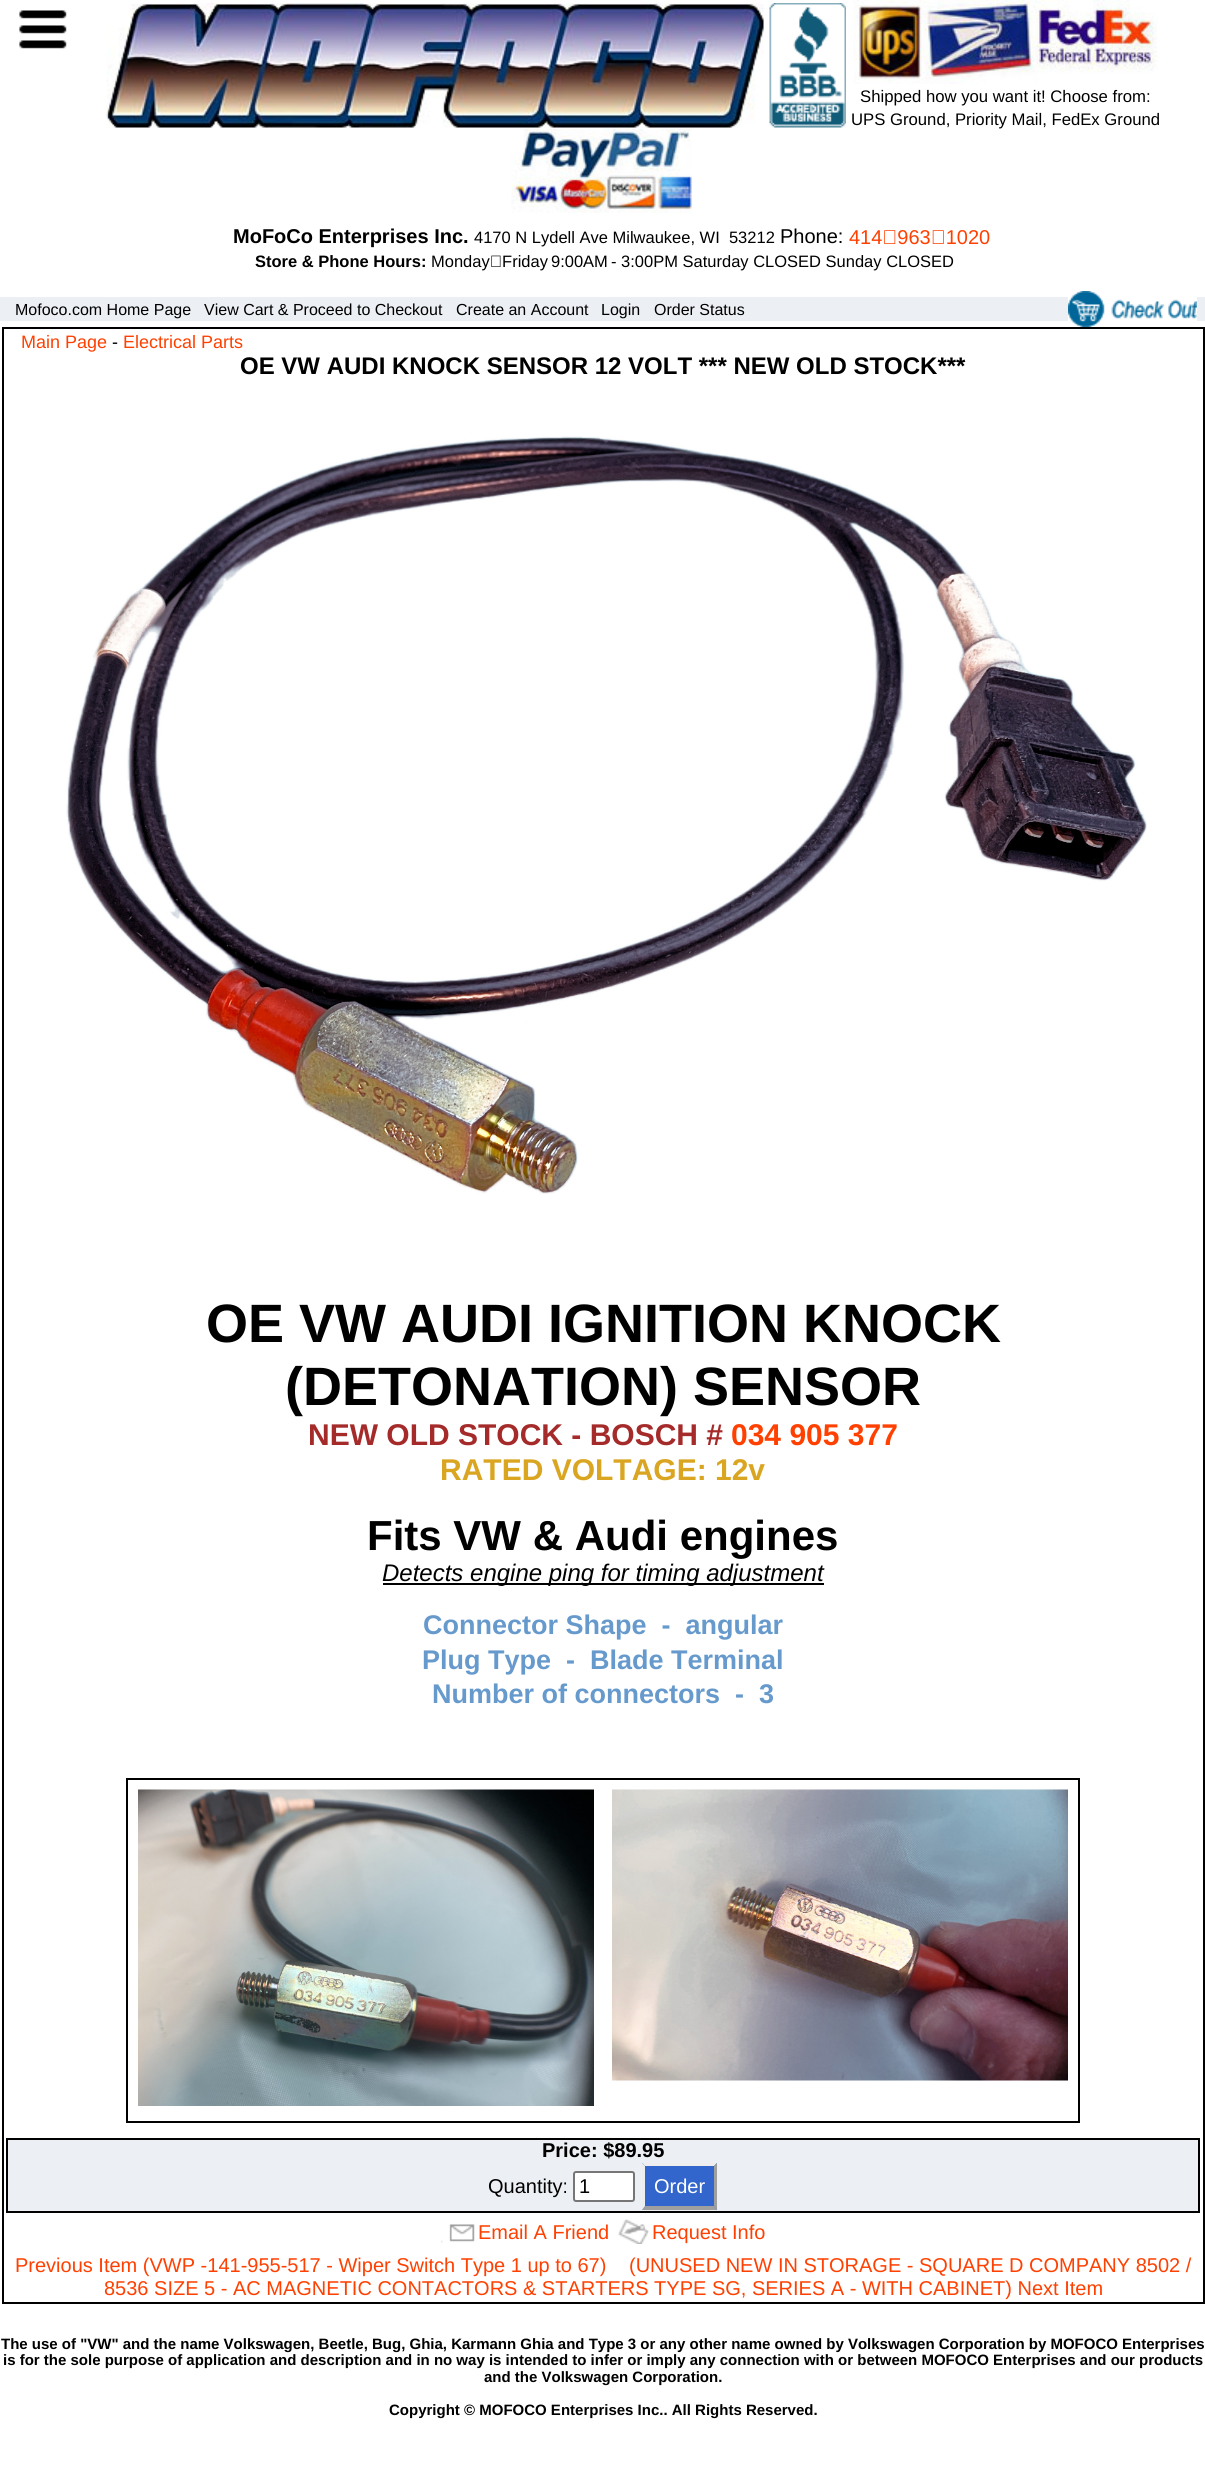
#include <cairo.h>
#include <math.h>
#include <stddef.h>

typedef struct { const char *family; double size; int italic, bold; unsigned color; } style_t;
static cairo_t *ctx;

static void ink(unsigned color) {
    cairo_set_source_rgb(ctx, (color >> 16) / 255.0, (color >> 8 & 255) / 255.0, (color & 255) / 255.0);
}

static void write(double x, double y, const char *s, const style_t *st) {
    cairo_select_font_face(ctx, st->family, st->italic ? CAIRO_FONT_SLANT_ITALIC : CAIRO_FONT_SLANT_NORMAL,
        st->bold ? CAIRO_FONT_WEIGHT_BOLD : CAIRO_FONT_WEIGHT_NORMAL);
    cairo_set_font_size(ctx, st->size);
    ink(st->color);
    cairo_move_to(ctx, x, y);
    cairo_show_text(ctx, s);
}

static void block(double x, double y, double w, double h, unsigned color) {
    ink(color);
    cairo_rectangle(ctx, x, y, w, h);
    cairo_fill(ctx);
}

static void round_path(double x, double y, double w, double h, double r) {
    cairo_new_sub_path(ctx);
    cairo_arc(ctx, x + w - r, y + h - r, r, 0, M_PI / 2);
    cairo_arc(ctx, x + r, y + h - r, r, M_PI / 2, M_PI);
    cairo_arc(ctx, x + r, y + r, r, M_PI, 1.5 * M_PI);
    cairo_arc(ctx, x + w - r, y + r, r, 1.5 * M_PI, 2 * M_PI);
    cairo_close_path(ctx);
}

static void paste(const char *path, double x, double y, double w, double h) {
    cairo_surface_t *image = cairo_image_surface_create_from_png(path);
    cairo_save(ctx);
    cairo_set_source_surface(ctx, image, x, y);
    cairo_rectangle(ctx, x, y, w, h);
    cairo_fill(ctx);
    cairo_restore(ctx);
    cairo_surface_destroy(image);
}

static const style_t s1 = {"Liberation Sans", 16.7, 0, 0, 0x000000};
static const style_t s2 = {"Liberation Sans", 20, 0, 1, 0x000000};
static const style_t s3 = {"Liberation Sans", 16.5, 0, 0, 0x000000};
static const style_t s4 = {"Liberation Sans", 20, 0, 0, 0x000000};
static const style_t s5 = {"Liberation Sans", 20, 0, 0, 0xff4000};
static const style_t s6 = {"Liberation Sans", 16.5, 0, 1, 0x000000};
static const style_t s7 = {"Liberation Sans", 16, 0, 0, 0x000000};
static const style_t s8 = {"Liberation Sans", 18, 0, 0, 0xff4000};
static const style_t s9 = {"Liberation Sans", 18, 0, 0, 0x000000};
static const style_t s10 = {"Liberation Sans", 24, 0, 1, 0x000000};
static const style_t s11 = {"Liberation Sans", 54, 0, 1, 0x000000};
static const style_t s12 = {"Liberation Sans", 30, 0, 1, 0xa52a2a};
static const style_t s13 = {"Liberation Sans", 30, 0, 1, 0xff4000};
static const style_t s14 = {"Liberation Sans", 30, 0, 1, 0xdaa520};
static const style_t s15 = {"Liberation Sans", 42, 0, 1, 0x000000};
static const style_t s16 = {"Liberation Sans", 24, 1, 0, 0x000000};
static const style_t s17 = {"Liberation Sans", 27, 0, 1, 0x6699cc};
static const style_t s18 = {"Liberation Sans", 20, 0, 0, 0xffffff};
static const style_t s19 = {"Liberation Sans", 15, 0, 1, 0x000000};

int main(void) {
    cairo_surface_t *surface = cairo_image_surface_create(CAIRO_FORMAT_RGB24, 1205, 2480);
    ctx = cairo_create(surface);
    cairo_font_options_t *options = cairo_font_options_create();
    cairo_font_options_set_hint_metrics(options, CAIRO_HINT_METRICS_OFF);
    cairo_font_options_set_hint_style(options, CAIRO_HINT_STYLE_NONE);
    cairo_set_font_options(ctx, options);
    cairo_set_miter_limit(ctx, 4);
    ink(0xffffff);
    cairo_paint(ctx);
    paste("pic1.png", 106, 3, 658, 125);
    paste("pic2.png", 769, 3, 77, 125);
    paste("pic3.png", 853, 0, 305, 84);
    write(860, 102, "Shipped how you want it! Choose from:", &s1);
    write(851, 125, "UPS Ground, Priority Mail, FedEx Ground", &s1);
    paste("pic4.png", 511, 129, 181, 84);
    write(233, 243, "MoFoCo Enterprises Inc.", &s2);
    write(474, 243, "4170 N Lydell Ave Milwaukee, WI  53212", &s3);
    write(780, 243, "Phone:", &s4);
    write(849, 244, "414‑963‑1020", &s5);
    write(255, 267, "Store & Phone Hours:", &s6);
    write(431, 267, "Monday‑Friday", &s3);
    write(551, 267, "9:00AM", &s3);
    write(611, 267, "- 3:00PM Saturday CLOSED Sunday CLOSED", &s3);
    block(0, 297, 1205, 24, 0xeceff3);
    paste("pic5.png", 1068, 291, 129, 36);
    write(15, 315, "Mofoco.com Home Page", &s7);
    write(204, 315, "View Cart & Proceed to Checkout", &s7);
    write(456, 315, "Create an Account", &s7);
    write(601, 315, "Login", &s7);
    write(654, 315, "Order Status", &s7);
    paste("pic6.png", 19, 10, 48, 39);
    cairo_rectangle(ctx, 3, 328, 1201, 1975);
    cairo_stroke(ctx);
    write(21, 348, "Main Page", &s8);
    write(112, 348, "-", &s9);
    write(123, 348, "Electrical Parts", &s8);
    write(240, 374, "OE VW AUDI KNOCK SENSOR 12 VOLT *** NEW OLD STOCK***", &s10);
    paste("pic7.png", 66, 436, 1081, 758);
    write(206, 1342, "OE VW AUDI IGNITION KNOCK", &s11);
    write(285, 1405, "(DETONATION) SENSOR", &s11);
    write(308, 1445, "NEW OLD STOCK - BOSCH #", &s12);
    write(731, 1445, "034 905 377", &s13);
    write(440, 1480, "RATED VOLTAGE: 12v", &s14);
    write(367, 1550, "Fits VW & Audi engines", &s15);
    block(383, 1583, 441, 2, 0x000000);
    write(382, 1581, "Detects engine ping for timing adjustment", &s16);
    write(423, 1634, "Connector Shape  -  angular", &s17);
    write(422, 1669, "Plug Type  -  Blade Terminal", &s17);
    write(432, 1703, "Number of connectors  -  3", &s17);
    cairo_rectangle(ctx, 127, 1779, 952, 343);
    ink(0x000000);
    cairo_stroke(ctx);
    paste("pic8.png", 138, 1789, 456, 317);
    paste("pic9.png", 612, 1789, 456, 292);
    ink(0xeceff3);
    cairo_rectangle(ctx, 7, 2139, 1192, 73);
    cairo_fill_preserve(ctx);
    ink(0x000000);
    cairo_stroke(ctx);
    write(542, 2157, "Price: $89.95", &s2);
    write(488, 2193, "Quantity:", &s4);
    ink(0xffffff);
    round_path(574, 2172, 60, 29, 2);
    cairo_fill_preserve(ctx);
    ink(0x767676);
    cairo_stroke(ctx);
    write(579, 2193, "1", &s4);
    block(642, 2163, 75, 47, 0x3366cc);
    ink(0xeeeeee);
    cairo_new_path(ctx);
    cairo_move_to(ctx, 642, 2163);
    cairo_line_to(ctx, 717, 2163);
    cairo_line_to(ctx, 714, 2166);
    cairo_line_to(ctx, 645, 2166);
    cairo_close_path(ctx);
    cairo_fill(ctx);
    ink(0x9f9f9f);
    cairo_new_path(ctx);
    cairo_move_to(ctx, 717, 2163);
    cairo_line_to(ctx, 717, 2210);
    cairo_line_to(ctx, 714, 2206);
    cairo_line_to(ctx, 714, 2166);
    cairo_close_path(ctx);
    cairo_fill(ctx);
    cairo_new_path(ctx);
    cairo_move_to(ctx, 717, 2210);
    cairo_line_to(ctx, 642, 2210);
    cairo_line_to(ctx, 645, 2206);
    cairo_line_to(ctx, 714, 2206);
    cairo_close_path(ctx);
    cairo_fill(ctx);
    ink(0xeeeeee);
    cairo_new_path(ctx);
    cairo_move_to(ctx, 642, 2210);
    cairo_line_to(ctx, 642, 2163);
    cairo_line_to(ctx, 645, 2166);
    cairo_line_to(ctx, 645, 2206);
    cairo_close_path(ctx);
    cairo_fill(ctx);
    write(654, 2193, "Order", &s18);
    paste("pic10.png", 441, 2224, 34, 19);
    write(478, 2239, "Email A Friend", &s5);
    paste("pic11.png", 618, 2219, 32, 25);
    write(652, 2239, "Request Info", &s5);
    write(15, 2272, "Previous Item (VWP -141-955-517 - Wiper Switch Type 1 up to 67)", &s5);
    write(629, 2272, "(UNUSED NEW IN STORAGE - SQUARE D COMPANY 8502 /", &s5);
    write(104, 2295, "8536 SIZE 5 - AC MAGNETIC CONTACTORS & STARTERS TYPE SG, SERIES A - WITH CABINET) Next Item", &s5);
    write(1, 2349, "The use of \"VW\" and the name Volkswagen, Beetle, Bug, Ghia, Karmann Ghia and Type 3 or any other name owned by Volkswagen Corporation by MOFOCO Enterprises", &s19);
    write(3, 2365, "is for the sole purpose of application and description and in no way is intended to infer or imply any connection with or between MOFOCO Enterprises and our products", &s19);
    write(484, 2382, "and the Volkswagen Corporation.", &s19);
    write(389, 2415, "Copyright © MOFOCO Enterprises Inc.. All Rights Reserved.", &s19);
    cairo_surface_write_to_png(surface, "screenshot.png");
    cairo_font_options_destroy(options);
    cairo_destroy(ctx);
    cairo_surface_destroy(surface);
    return 0;
}
